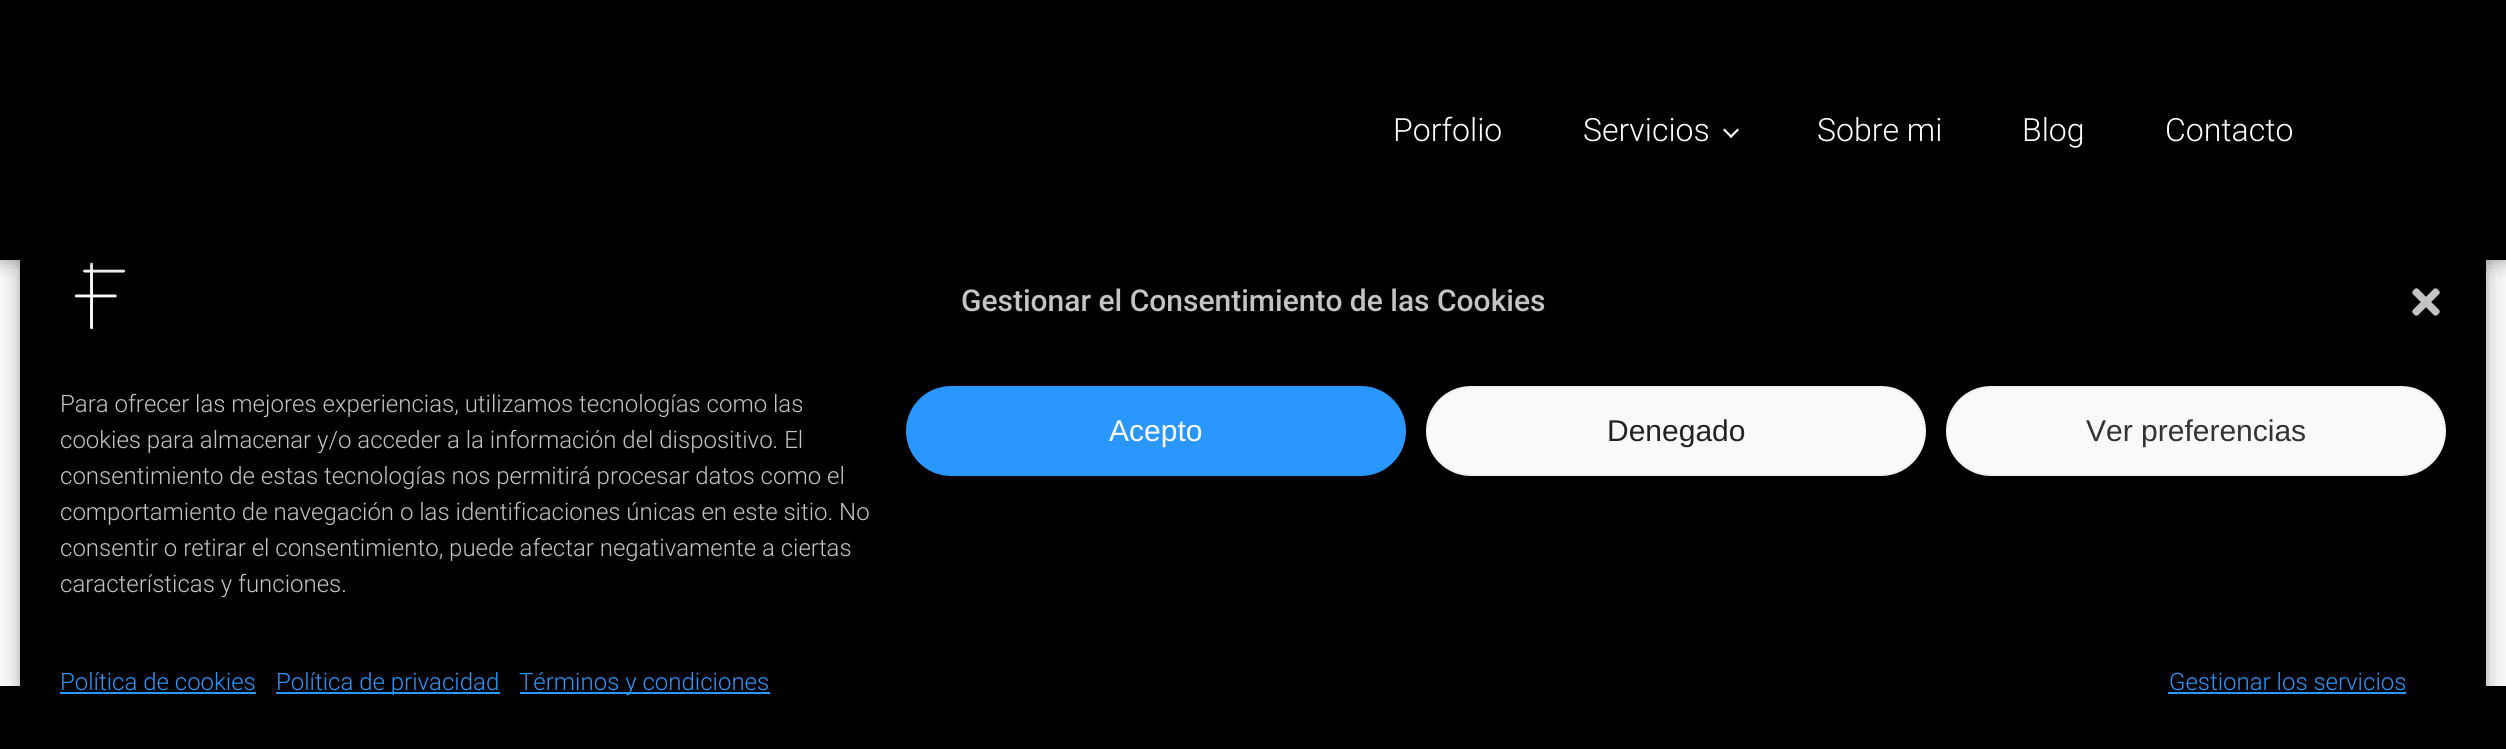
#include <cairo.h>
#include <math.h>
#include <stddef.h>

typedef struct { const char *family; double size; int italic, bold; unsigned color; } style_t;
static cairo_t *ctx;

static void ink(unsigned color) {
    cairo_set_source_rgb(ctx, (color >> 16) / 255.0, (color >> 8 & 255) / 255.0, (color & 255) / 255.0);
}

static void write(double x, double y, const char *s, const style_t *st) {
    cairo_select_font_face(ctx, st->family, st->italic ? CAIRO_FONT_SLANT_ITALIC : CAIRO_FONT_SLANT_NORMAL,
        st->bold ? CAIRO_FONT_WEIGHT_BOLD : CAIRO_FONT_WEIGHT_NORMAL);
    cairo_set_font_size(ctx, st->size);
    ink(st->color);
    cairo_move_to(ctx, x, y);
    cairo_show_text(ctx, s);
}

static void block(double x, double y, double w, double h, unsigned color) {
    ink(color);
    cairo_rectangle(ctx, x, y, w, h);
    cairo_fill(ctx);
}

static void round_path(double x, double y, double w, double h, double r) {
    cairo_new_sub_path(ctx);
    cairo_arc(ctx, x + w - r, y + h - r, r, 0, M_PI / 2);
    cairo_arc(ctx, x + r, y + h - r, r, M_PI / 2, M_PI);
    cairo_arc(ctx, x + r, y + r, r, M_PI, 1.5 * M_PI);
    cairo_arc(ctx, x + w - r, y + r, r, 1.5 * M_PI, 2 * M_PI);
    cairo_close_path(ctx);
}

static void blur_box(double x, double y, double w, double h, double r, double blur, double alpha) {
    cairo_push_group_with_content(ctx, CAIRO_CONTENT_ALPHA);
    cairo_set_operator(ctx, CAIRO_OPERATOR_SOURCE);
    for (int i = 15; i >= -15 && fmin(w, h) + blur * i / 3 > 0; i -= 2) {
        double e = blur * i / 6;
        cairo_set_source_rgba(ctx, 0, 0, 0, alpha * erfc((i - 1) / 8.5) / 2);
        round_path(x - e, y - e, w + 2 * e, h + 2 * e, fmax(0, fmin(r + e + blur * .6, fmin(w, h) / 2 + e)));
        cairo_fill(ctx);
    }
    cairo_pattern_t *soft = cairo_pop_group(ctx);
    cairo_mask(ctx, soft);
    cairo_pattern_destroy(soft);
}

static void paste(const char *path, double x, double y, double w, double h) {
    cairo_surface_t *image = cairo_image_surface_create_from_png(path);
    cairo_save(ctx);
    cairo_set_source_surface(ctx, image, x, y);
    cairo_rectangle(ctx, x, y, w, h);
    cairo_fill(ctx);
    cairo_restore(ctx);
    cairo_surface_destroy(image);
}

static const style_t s1 = {"Roboto Light", 32, 0, 0, 0xffffff};
static const style_t s2 = {"Roboto Medium", 30, 0, 0, 0xc4c4c4};
static const style_t s3 = {"Roboto Light", 24, 0, 0, 0xc4c4c4};
static const style_t s4 = {"Liberation Sans", 30, 0, 0, 0xffffff};
static const style_t s5 = {"Liberation Sans", 30, 0, 0, 0x222222};
static const style_t s6 = {"Liberation Sans", 30, 0, 0, 0x333333};
static const style_t s7 = {"Roboto Light", 24, 0, 0, 0x2997ff};

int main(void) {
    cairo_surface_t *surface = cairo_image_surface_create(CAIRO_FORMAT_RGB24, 2506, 749);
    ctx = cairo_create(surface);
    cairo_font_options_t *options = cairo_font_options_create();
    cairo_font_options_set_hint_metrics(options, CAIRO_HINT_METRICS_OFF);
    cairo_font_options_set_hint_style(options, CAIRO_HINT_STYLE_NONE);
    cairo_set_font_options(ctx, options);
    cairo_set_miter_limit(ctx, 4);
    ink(0xffffff);
    cairo_paint(ctx);
    block(0, 686, 2506, 63, 0x000000);
    ink(0x000000);
    blur_box(20, 238, 2466, 504, 24, 6, 0.23);
    blur_box(20, 246, 2466, 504, 24, 20, 0.19);
    ink(0x000000);
    round_path(20, 226, 2466, 504, 24);
    cairo_fill(ctx);
    paste("pic1.png", 74, 262, 51, 68);
    paste("pic2.png", 2412, 288, 28, 28);
    ink(0x000000);
    blur_box(0, 0, 2506, 260, 0, 10, 0.4);
    block(0, 0, 2506, 260, 0x000000);
    write(1393, 141, "Porfolio", &s1);
    write(1583, 141, "Servicios", &s1);
    cairo_new_path(ctx);
    cairo_move_to(ctx, 1739, 130);
    cairo_line_to(ctx, 1731, 138);
    cairo_line_to(ctx, 1729.5, 136.5);
    cairo_line_to(ctx, 1737.5, 128.5);
    cairo_close_path(ctx);
    cairo_fill(ctx);
    cairo_new_path(ctx);
    cairo_move_to(ctx, 1732.5, 136.5);
    cairo_line_to(ctx, 1731, 138);
    cairo_line_to(ctx, 1723, 130);
    cairo_line_to(ctx, 1724.5, 128.5);
    cairo_close_path(ctx);
    cairo_fill(ctx);
    write(1817, 141, "Sobre mi", &s1);
    write(2022, 141, "Blog", &s1);
    write(2165, 141, "Contacto", &s1);
    write(961, 311, "Gestionar el Consentimiento de las Cookies", &s2);
    write(60, 412, "Para ofrecer las mejores experiencias, utilizamos tecnologías como las", &s3);
    write(60, 448, "cookies para almacenar y/o acceder a la información del dispositivo. El", &s3);
    write(60, 484, "consentimiento de estas tecnologías nos permitirá procesar datos como el", &s3);
    write(60, 520, "comportamiento de navegación o las identificaciones únicas en este sitio. No", &s3);
    write(60, 556, "consentir o retirar el consentimiento, puede afectar negativamente a ciertas", &s3);
    write(60, 592, "características y funciones.", &s3);
    ink(0x2997ff);
    round_path(907, 387, 498, 88, 44);
    cairo_fill_preserve(ctx);
    cairo_stroke(ctx);
    write(1109, 441, "Acepto", &s4);
    ink(0xf9f9f9);
    round_path(1427, 387, 498, 88, 44);
    cairo_fill_preserve(ctx);
    ink(0xf2f2f2);
    cairo_stroke(ctx);
    write(1607, 441, "Denegado", &s5);
    ink(0xf9f9f9);
    round_path(1947, 387, 498, 88, 44);
    cairo_fill_preserve(ctx);
    ink(0xf2f2f2);
    cairo_stroke(ctx);
    write(2086, 441, "Ver preferencias", &s6);
    write(60, 690, "Política de cookies", &s7);
    block(60, 692, 196, 2, 0x2997ff);
    block(276, 692, 224, 2, 0x2997ff);
    write(276, 690, "Política de privacidad", &s7);
    block(520, 692, 250, 2, 0x2997ff);
    write(519, 690, "Términos y condiciones", &s7);
    write(2169, 690, "Gestionar los servicios", &s7);
    block(2168, 692, 238, 2, 0x2997ff);
    cairo_surface_write_to_png(surface, "screenshot.png");
    cairo_font_options_destroy(options);
    cairo_destroy(ctx);
    cairo_surface_destroy(surface);
    return 0;
}
